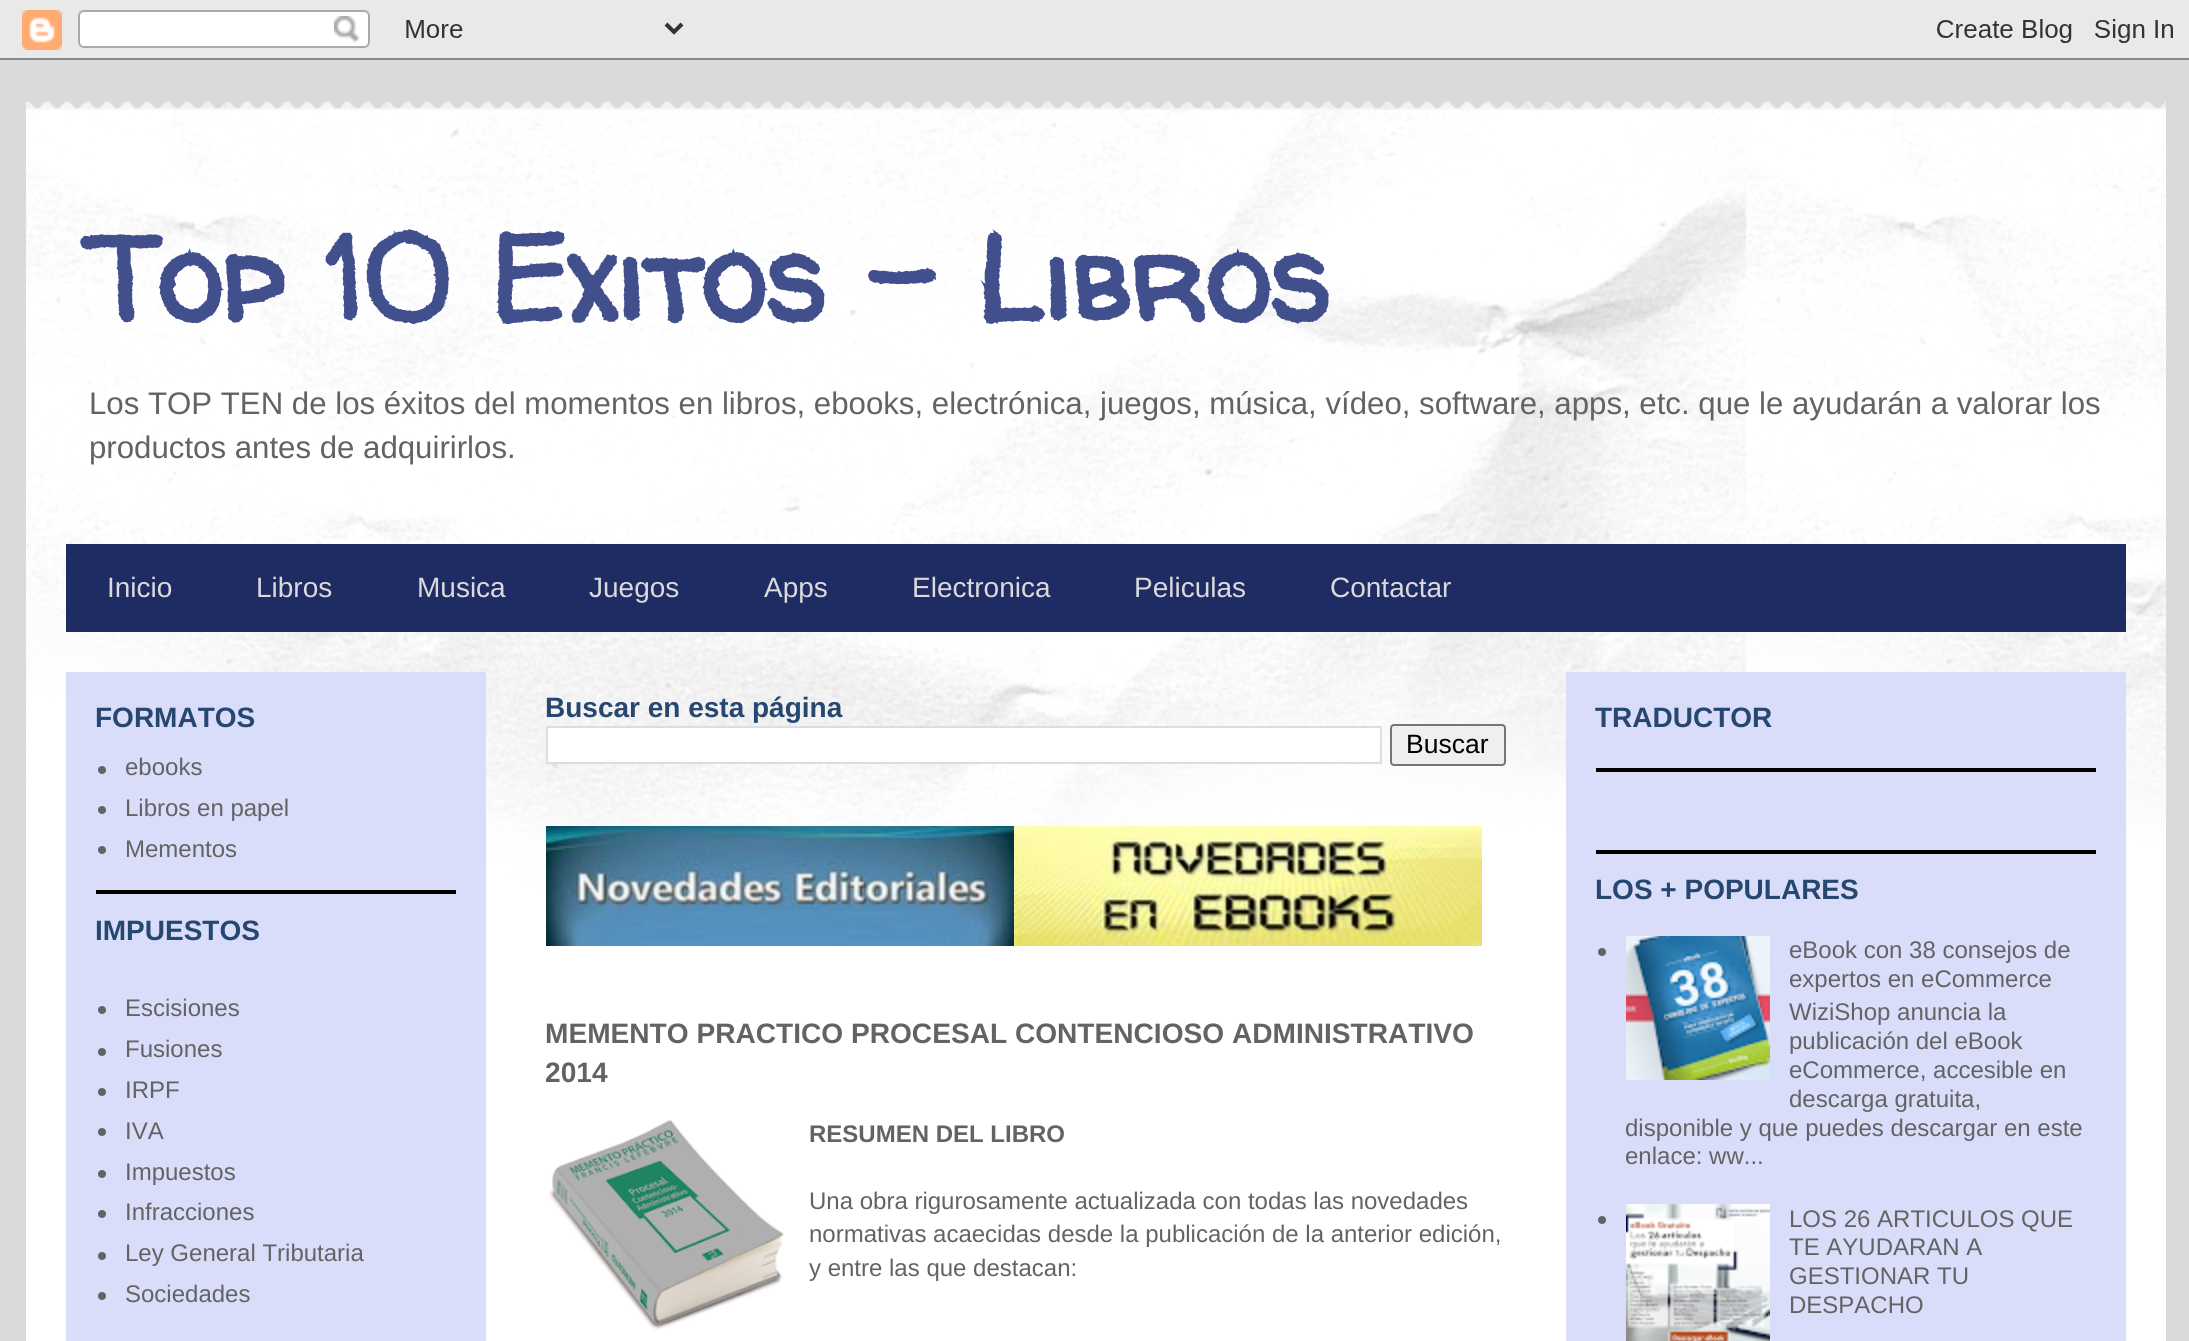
#include <cairo.h>
#include <math.h>
#include <stddef.h>

typedef struct { const char *family; double size; int italic, bold; unsigned color; } style_t;
static cairo_t *ctx;

static void ink(unsigned color) {
    cairo_set_source_rgb(ctx, (color >> 16) / 255.0, (color >> 8 & 255) / 255.0, (color & 255) / 255.0);
}

static void write(double x, double y, const char *s, const style_t *st) {
    cairo_select_font_face(ctx, st->family, st->italic ? CAIRO_FONT_SLANT_ITALIC : CAIRO_FONT_SLANT_NORMAL,
        st->bold ? CAIRO_FONT_WEIGHT_BOLD : CAIRO_FONT_WEIGHT_NORMAL);
    cairo_set_font_size(ctx, st->size);
    ink(st->color);
    cairo_move_to(ctx, x, y);
    cairo_show_text(ctx, s);
}

static void block(double x, double y, double w, double h, unsigned color) {
    ink(color);
    cairo_rectangle(ctx, x, y, w, h);
    cairo_fill(ctx);
}

static void round_path(double x, double y, double w, double h, double r) {
    cairo_new_sub_path(ctx);
    cairo_arc(ctx, x + w - r, y + h - r, r, 0, M_PI / 2);
    cairo_arc(ctx, x + r, y + h - r, r, M_PI / 2, M_PI);
    cairo_arc(ctx, x + r, y + r, r, M_PI, 1.5 * M_PI);
    cairo_arc(ctx, x + w - r, y + r, r, 1.5 * M_PI, 2 * M_PI);
    cairo_close_path(ctx);
}

static void paste(const char *path, double x, double y, double w, double h) {
    cairo_surface_t *image = cairo_image_surface_create_from_png(path);
    cairo_save(ctx);
    cairo_set_source_surface(ctx, image, x, y);
    cairo_rectangle(ctx, x, y, w, h);
    cairo_fill(ctx);
    cairo_restore(ctx);
    cairo_surface_destroy(image);
}

static const style_t s1 = {"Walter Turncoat", 120, 0, 1, 0x414f8d};
static const style_t s2 = {"Liberation Sans", 31.2, 0, 0, 0x636363};
static const style_t s3 = {"Liberation Sans", 28, 0, 0, 0xdadadc};
static const style_t s4 = {"Liberation Sans", 28, 0, 1, 0x254770};
static const style_t s5 = {"Liberation Sans", 24, 0, 0, 0x636363};
static const style_t s6 = {"Liberation Sans", 26.5, 0, 0, 0x000000};
static const style_t s7 = {"Liberation Sans", 28.1, 0, 1, 0x636363};
static const style_t s8 = {"Liberation Sans", 24, 0, 1, 0x636363};

int main(void) {
    cairo_surface_t *surface = cairo_image_surface_create(CAIRO_FORMAT_RGB24, 2189, 1341);
    ctx = cairo_create(surface);
    cairo_font_options_t *options = cairo_font_options_create();
    cairo_font_options_set_hint_metrics(options, CAIRO_HINT_METRICS_OFF);
    cairo_font_options_set_hint_style(options, CAIRO_HINT_STYLE_NONE);
    cairo_set_font_options(ctx, options);
    cairo_set_miter_limit(ctx, 4);
    ink(0xdadadc);
    cairo_paint(ctx);
    paste("pic1.png", 0, 0, 2189, 60);
    paste("pic2.png", 26, 101, 2140, 9);
    block(26, 110, 2140, 1231, 0xffffff);
    paste("pic3.png", 26, 110, 2140, 784);
    write(85, 322, "Top 10 Exitos - Libros", &s1);
    write(89, 414, "Los TOP TEN de los éxitos del momentos en libros, ebooks, electrónica, juegos, música, vídeo, software, apps, etc. que le ayudarán a valorar los", &s2);
    write(89, 458, "productos antes de adquirirlos.", &s2);
    block(66, 544, 2060, 88, 0x1f2b63);
    write(107, 597, "Inicio", &s3);
    write(256, 597, "Libros", &s3);
    write(417, 597, "Musica", &s3);
    write(589, 597, "Juegos", &s3);
    write(764, 597, "Apps", &s3);
    write(912, 597, "Electronica", &s3);
    write(1134, 597, "Peliculas", &s3);
    write(1330, 597, "Contactar", &s3);
    block(66, 672, 420, 669, 0xd9ddfa);
    block(1566, 672, 560, 669, 0xd9ddfa);
    block(96, 890, 360, 4, 0x000000);
    write(95, 727, "FORMATOS", &s4);
    ink(0x636363);
    cairo_new_path(ctx);
    cairo_arc(ctx, 102, 770, 4, 0, 2 * M_PI);
    cairo_fill(ctx);
    write(125, 775, "ebooks", &s5);
    cairo_new_path(ctx);
    cairo_arc(ctx, 102, 810, 4, 0, 2 * M_PI);
    cairo_fill(ctx);
    write(125, 816, "Libros en papel", &s5);
    cairo_new_path(ctx);
    cairo_arc(ctx, 102, 850, 4, 0, 2 * M_PI);
    cairo_fill(ctx);
    write(125, 857, "Mementos", &s5);
    write(95, 940, "IMPUESTOS", &s4);
    ink(0x636363);
    cairo_new_path(ctx);
    cairo_arc(ctx, 102, 1010, 4, 0, 2 * M_PI);
    cairo_fill(ctx);
    write(125, 1016, "Escisiones", &s5);
    cairo_new_path(ctx);
    cairo_arc(ctx, 102, 1052, 4, 0, 2 * M_PI);
    cairo_fill(ctx);
    write(125, 1057, "Fusiones", &s5);
    cairo_new_path(ctx);
    cairo_arc(ctx, 102, 1092, 4, 0, 2 * M_PI);
    cairo_fill(ctx);
    write(125, 1098, "IRPF", &s5);
    cairo_new_path(ctx);
    cairo_arc(ctx, 102, 1132, 4, 0, 2 * M_PI);
    cairo_fill(ctx);
    write(125, 1139, "IVA", &s5);
    cairo_new_path(ctx);
    cairo_arc(ctx, 102, 1174, 4, 0, 2 * M_PI);
    cairo_fill(ctx);
    write(125, 1180, "Impuestos", &s5);
    cairo_new_path(ctx);
    cairo_arc(ctx, 102, 1214, 4, 0, 2 * M_PI);
    cairo_fill(ctx);
    write(125, 1220, "Infracciones", &s5);
    cairo_new_path(ctx);
    cairo_arc(ctx, 102, 1256, 4, 0, 2 * M_PI);
    cairo_fill(ctx);
    write(125, 1261, "Ley General Tributaria", &s5);
    cairo_new_path(ctx);
    cairo_arc(ctx, 102, 1296, 4, 0, 2 * M_PI);
    cairo_fill(ctx);
    write(125, 1302, "Sociedades", &s5);
    write(545, 717, "Buscar en esta página", &s4);
    ink(0xffffff);
    cairo_rectangle(ctx, 547, 727, 834, 36);
    cairo_fill_preserve(ctx);
    ink(0xdddddd);
    cairo_stroke(ctx);
    ink(0xefefef);
    round_path(1391, 725, 114, 40, 3);
    cairo_fill_preserve(ctx);
    ink(0x767676);
    cairo_stroke(ctx);
    write(1406, 753, "Buscar", &s6);
    paste("pic4.png", 546, 826, 468, 120);
    paste("pic5.png", 1014, 826, 468, 120);
    write(545, 1043, "MEMENTO PRACTICO PROCESAL CONTENCIOSO ADMINISTRATIVO", &s7);
    write(545, 1082, "2014", &s7);
    paste("pic6.png", 549, 1120, 235, 210);
    write(809, 1142, "RESUMEN DEL LIBRO", &s8);
    write(809, 1209, "Una obra rigurosamente actualizada con todas las novedades", &s5);
    write(809, 1242, "normativas acaecidas desde la publicación de la anterior edición,", &s5);
    write(809, 1276, "y entre las que destacan:", &s5);
    block(1596, 768, 500, 4, 0x000000);
    write(1595, 727, "TRADUCTOR", &s4);
    block(1596, 850, 500, 4, 0x000000);
    write(1595, 899, "LOS + POPULARES", &s4);
    ink(0x636363);
    cairo_new_path(ctx);
    cairo_arc(ctx, 1602, 952, 4, 0, 2 * M_PI);
    cairo_fill(ctx);
    paste("pic7.png", 1626, 936, 144, 144);
    write(1789, 958, "eBook con 38 consejos de", &s5);
    write(1789, 987, "expertos en eCommerce", &s5);
    write(1789, 1020, "WiziShop anuncia la", &s5);
    write(1789, 1049, "publicación del eBook", &s5);
    write(1789, 1078, "eCommerce, accesible en", &s5);
    write(1789, 1107, "descarga gratuita,", &s5);
    write(1625, 1136, "disponible y que puedes descargar en este", &s5);
    write(1625, 1164, "enlace: ww...", &s5);
    cairo_new_path(ctx);
    cairo_arc(ctx, 1602, 1220, 4, 0, 2 * M_PI);
    cairo_fill(ctx);
    paste("pic8.png", 1626, 1204, 144, 137);
    write(1789, 1227, "LOS 26 ARTICULOS QUE", &s5);
    write(1789, 1255, "TE AYUDARAN A", &s5);
    write(1789, 1284, "GESTIONAR TU", &s5);
    write(1789, 1313, "DESPACHO", &s5);
    cairo_surface_write_to_png(surface, "screenshot.png");
    cairo_font_options_destroy(options);
    cairo_destroy(ctx);
    cairo_surface_destroy(surface);
    return 0;
}
